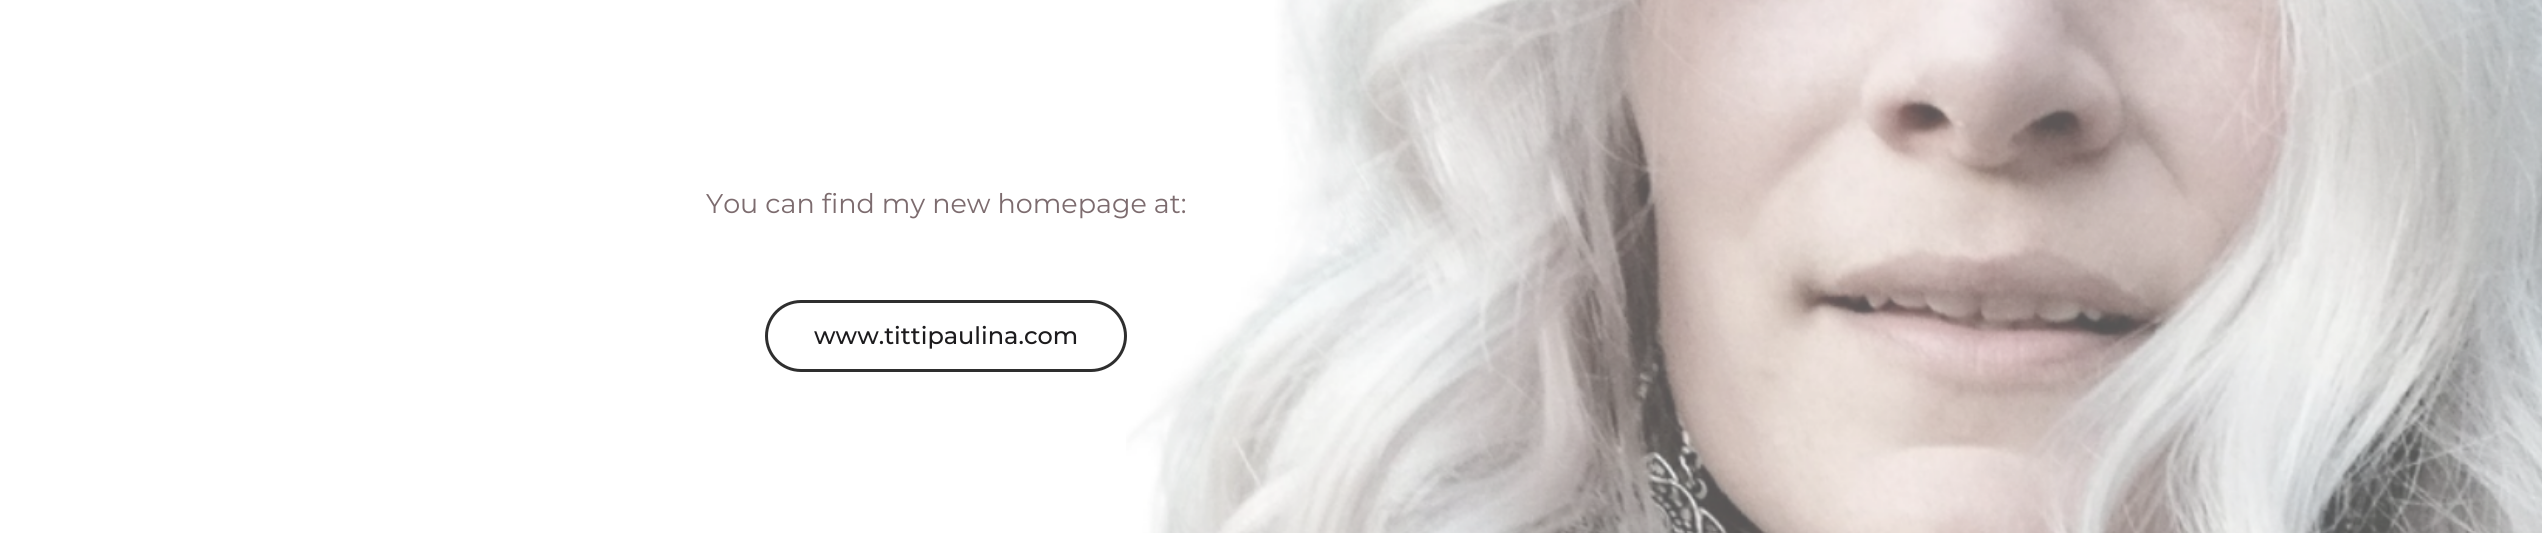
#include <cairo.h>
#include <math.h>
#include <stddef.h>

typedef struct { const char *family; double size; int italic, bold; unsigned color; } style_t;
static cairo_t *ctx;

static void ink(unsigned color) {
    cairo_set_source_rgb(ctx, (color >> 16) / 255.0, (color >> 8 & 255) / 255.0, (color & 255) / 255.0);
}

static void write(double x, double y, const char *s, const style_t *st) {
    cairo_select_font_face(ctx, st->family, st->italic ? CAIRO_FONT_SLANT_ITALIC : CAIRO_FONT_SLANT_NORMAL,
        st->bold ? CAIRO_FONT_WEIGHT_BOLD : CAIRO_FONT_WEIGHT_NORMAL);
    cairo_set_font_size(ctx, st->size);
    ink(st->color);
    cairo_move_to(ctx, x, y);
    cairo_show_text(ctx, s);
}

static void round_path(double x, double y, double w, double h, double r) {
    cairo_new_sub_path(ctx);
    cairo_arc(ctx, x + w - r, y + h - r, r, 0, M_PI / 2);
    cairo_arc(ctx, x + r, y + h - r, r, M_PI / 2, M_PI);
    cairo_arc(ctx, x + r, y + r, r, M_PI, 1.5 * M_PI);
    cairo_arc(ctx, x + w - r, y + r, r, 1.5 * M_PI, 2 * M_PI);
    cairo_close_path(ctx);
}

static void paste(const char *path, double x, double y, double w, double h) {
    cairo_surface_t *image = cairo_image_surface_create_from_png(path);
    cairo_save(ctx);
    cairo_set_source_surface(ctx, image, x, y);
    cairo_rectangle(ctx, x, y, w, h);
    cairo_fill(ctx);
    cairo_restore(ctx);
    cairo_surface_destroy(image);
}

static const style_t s1 = {"Montserrat", 27, 0, 0, 0x7c6b6e};
static const style_t s2 = {"Montserrat Medium", 24, 0, 0, 0x1c1b1d};

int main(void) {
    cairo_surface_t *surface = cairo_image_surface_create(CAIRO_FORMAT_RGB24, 2542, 533);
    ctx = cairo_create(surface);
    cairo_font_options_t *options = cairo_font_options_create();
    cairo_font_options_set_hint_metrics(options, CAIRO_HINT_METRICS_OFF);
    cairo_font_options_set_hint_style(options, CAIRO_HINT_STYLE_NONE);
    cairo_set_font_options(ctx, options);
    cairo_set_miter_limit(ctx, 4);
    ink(0xffffff);
    cairo_paint(ctx);
    paste("pic1.png", 1126, 0, 1416, 533);
    write(706, 213, "You can find my new homepage at:", &s1);
    round_path(766.5, 301.5, 359, 69, 34.5);
    ink(0x2e2e2e);
    cairo_set_line_width(ctx, 3);
    cairo_stroke(ctx);
    write(814, 344, "www.tittipaulina.com", &s2);
    cairo_surface_write_to_png(surface, "screenshot.png");
    cairo_font_options_destroy(options);
    cairo_destroy(ctx);
    cairo_surface_destroy(surface);
    return 0;
}
